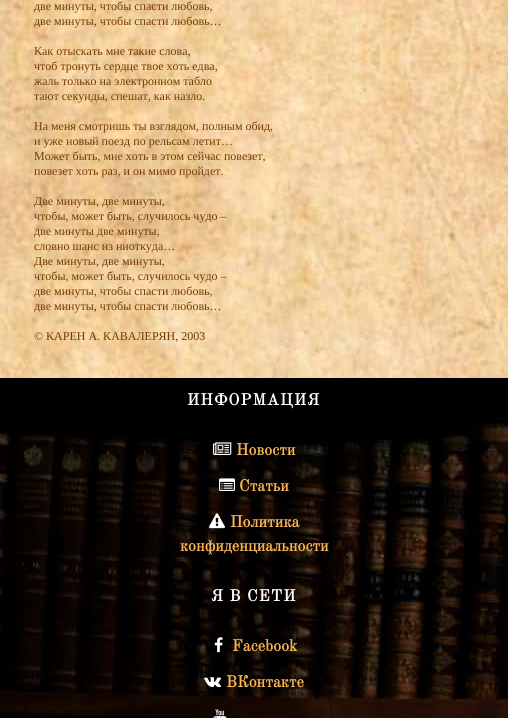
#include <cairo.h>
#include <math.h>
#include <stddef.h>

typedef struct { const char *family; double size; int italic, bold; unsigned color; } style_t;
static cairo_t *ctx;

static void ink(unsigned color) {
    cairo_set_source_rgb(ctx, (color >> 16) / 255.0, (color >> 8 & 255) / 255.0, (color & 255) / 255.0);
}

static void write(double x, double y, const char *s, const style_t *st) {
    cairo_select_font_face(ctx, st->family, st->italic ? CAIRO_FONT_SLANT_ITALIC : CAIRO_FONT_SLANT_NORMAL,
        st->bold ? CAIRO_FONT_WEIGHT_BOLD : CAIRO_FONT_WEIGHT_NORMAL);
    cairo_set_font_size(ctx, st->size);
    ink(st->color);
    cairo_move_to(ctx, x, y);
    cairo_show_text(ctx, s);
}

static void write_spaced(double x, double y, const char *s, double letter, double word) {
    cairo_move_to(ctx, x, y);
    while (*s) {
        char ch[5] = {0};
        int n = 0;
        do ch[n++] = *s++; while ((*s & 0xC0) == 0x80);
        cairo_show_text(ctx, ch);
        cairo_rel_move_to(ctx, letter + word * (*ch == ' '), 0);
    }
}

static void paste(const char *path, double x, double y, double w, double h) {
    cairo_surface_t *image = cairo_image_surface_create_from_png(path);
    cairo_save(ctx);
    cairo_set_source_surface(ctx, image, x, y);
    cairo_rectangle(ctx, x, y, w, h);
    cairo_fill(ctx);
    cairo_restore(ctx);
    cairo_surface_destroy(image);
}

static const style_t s1 = {"Liberation Serif", 12, 0, 0, 0x753b01};
static const style_t s2 = {"Old Standard TT", 16, 0, 1, 0xfab555};

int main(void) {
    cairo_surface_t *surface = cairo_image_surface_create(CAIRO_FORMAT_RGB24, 508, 718);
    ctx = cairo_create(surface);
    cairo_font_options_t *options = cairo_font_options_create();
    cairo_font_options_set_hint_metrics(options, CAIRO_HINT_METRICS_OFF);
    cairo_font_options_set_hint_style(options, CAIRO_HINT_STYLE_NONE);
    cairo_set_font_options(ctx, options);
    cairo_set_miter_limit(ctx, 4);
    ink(0xffffff);
    cairo_paint(ctx);
    paste("pic1.png", 0, 0, 508, 378);
    write(34, 10, "две минуты, чтобы спасти любовь,", &s1);
    write(34, 25, "две минуты, чтобы спасти любовь…", &s1);
    write(34, 55, "Как отыскать мне такие слова,", &s1);
    write(34, 70, "чтоб тронуть сердце твое хоть едва,", &s1);
    write(34, 85, "жаль только на электронном табло", &s1);
    write(34, 100, "тают секунды, спешат, как назло.", &s1);
    write(34, 130, "На меня смотришь ты взглядом, полным обид,", &s1);
    write(34, 145, "и уже новый поезд по рельсам летит…", &s1);
    write(34, 160, "Может быть, мне хоть в этом сейчас повезет,", &s1);
    write(34, 175, "повезет хоть раз, и он мимо пройдет.", &s1);
    write(34, 205, "Две минуты, две минуты,", &s1);
    write(34, 220, "чтобы, может быть, случилось чудо –", &s1);
    write(34, 235, "две минуты две минуты,", &s1);
    write(34, 250, "словно шанс из ниоткуда…", &s1);
    write(34, 265, "Две минуты, две минуты,", &s1);
    write(34, 280, "чтобы, может быть, случилось чудо –", &s1);
    write(34, 295, "две минуты, чтобы спасти любовь,", &s1);
    write(34, 310, "две минуты, чтобы спасти любовь…", &s1);
    write(34, 340, "© КАРЕН А. КАВАЛЕРЯН, 2003", &s1);
    paste("pic2.png", 0, 378, 508, 340);
    cairo_select_font_face(ctx, "Old Standard TT", CAIRO_FONT_SLANT_NORMAL, CAIRO_FONT_WEIGHT_BOLD);
    cairo_set_font_size(ctx, 16);
    ink(0xffffff);
    write_spaced(187, 405, "ИНФОРМАЦИЯ", 1, 0);
    paste("pic3.png", 213, 442, 19, 13);
    write(236, 455, "Новости", &s2);
    paste("pic4.png", 219, 478, 16, 13);
    write(239, 491, "Статьи", &s2);
    paste("pic5.png", 209, 513, 16, 16);
    write(230, 527, "Политика", &s2);
    write(180, 551, "конфиденциальности", &s2);
    ink(0xffffff);
    write_spaced(211, 601, "Я В СЕТИ", 1, 0);
    paste("pic6.png", 214, 637, 9, 16);
    write(232, 651, "Facebook", &s2);
    paste("pic7.png", 204, 677, 18, 10);
    write(226, 687, "ВКонтакте", &s2);
    paste("pic8.png", 213, 709, 14, 9);
    cairo_surface_write_to_png(surface, "screenshot.png");
    cairo_font_options_destroy(options);
    cairo_destroy(ctx);
    cairo_surface_destroy(surface);
    return 0;
}
